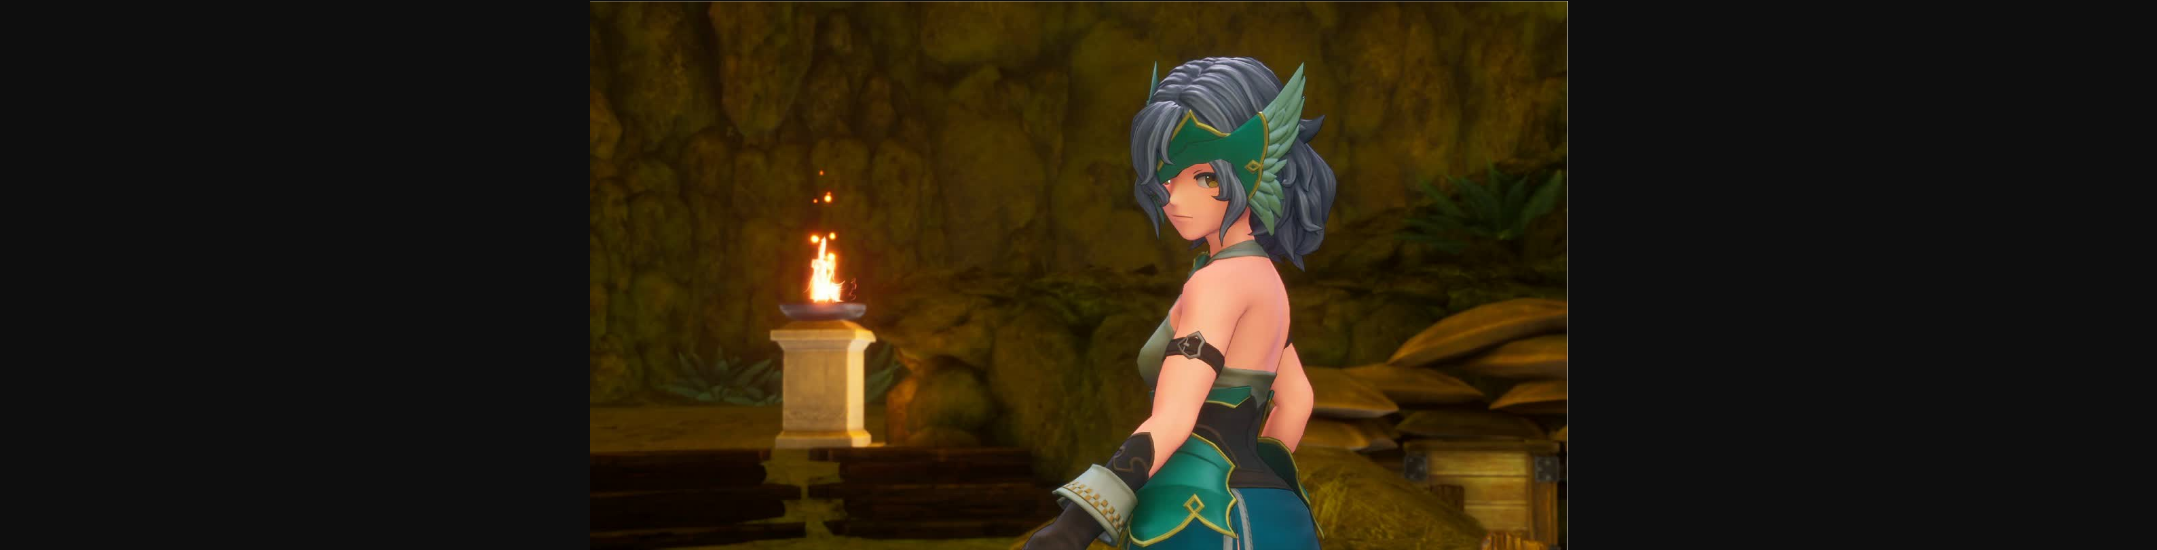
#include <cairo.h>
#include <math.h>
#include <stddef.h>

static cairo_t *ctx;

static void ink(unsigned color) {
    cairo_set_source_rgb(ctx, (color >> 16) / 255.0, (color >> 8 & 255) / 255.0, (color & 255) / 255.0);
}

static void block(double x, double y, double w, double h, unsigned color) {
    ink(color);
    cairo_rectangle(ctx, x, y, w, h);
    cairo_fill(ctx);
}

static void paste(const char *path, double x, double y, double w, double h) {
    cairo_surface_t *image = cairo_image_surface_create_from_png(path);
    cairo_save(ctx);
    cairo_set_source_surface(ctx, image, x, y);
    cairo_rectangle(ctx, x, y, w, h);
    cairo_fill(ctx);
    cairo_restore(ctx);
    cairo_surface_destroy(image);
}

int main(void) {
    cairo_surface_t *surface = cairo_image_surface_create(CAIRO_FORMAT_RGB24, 2157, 550);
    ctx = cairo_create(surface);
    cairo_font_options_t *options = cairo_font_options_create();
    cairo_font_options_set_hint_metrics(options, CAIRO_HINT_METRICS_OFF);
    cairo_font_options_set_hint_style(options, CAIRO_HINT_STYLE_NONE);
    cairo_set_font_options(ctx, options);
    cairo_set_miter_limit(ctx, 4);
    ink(0x0e0e0e);
    cairo_paint(ctx);
    block(590, 1, 978, 549, 0xe6e6e6);
    paste("pic1.png", 590, 1, 978, 549);
    cairo_surface_write_to_png(surface, "screenshot.png");
    cairo_font_options_destroy(options);
    cairo_destroy(ctx);
    cairo_surface_destroy(surface);
    return 0;
}
